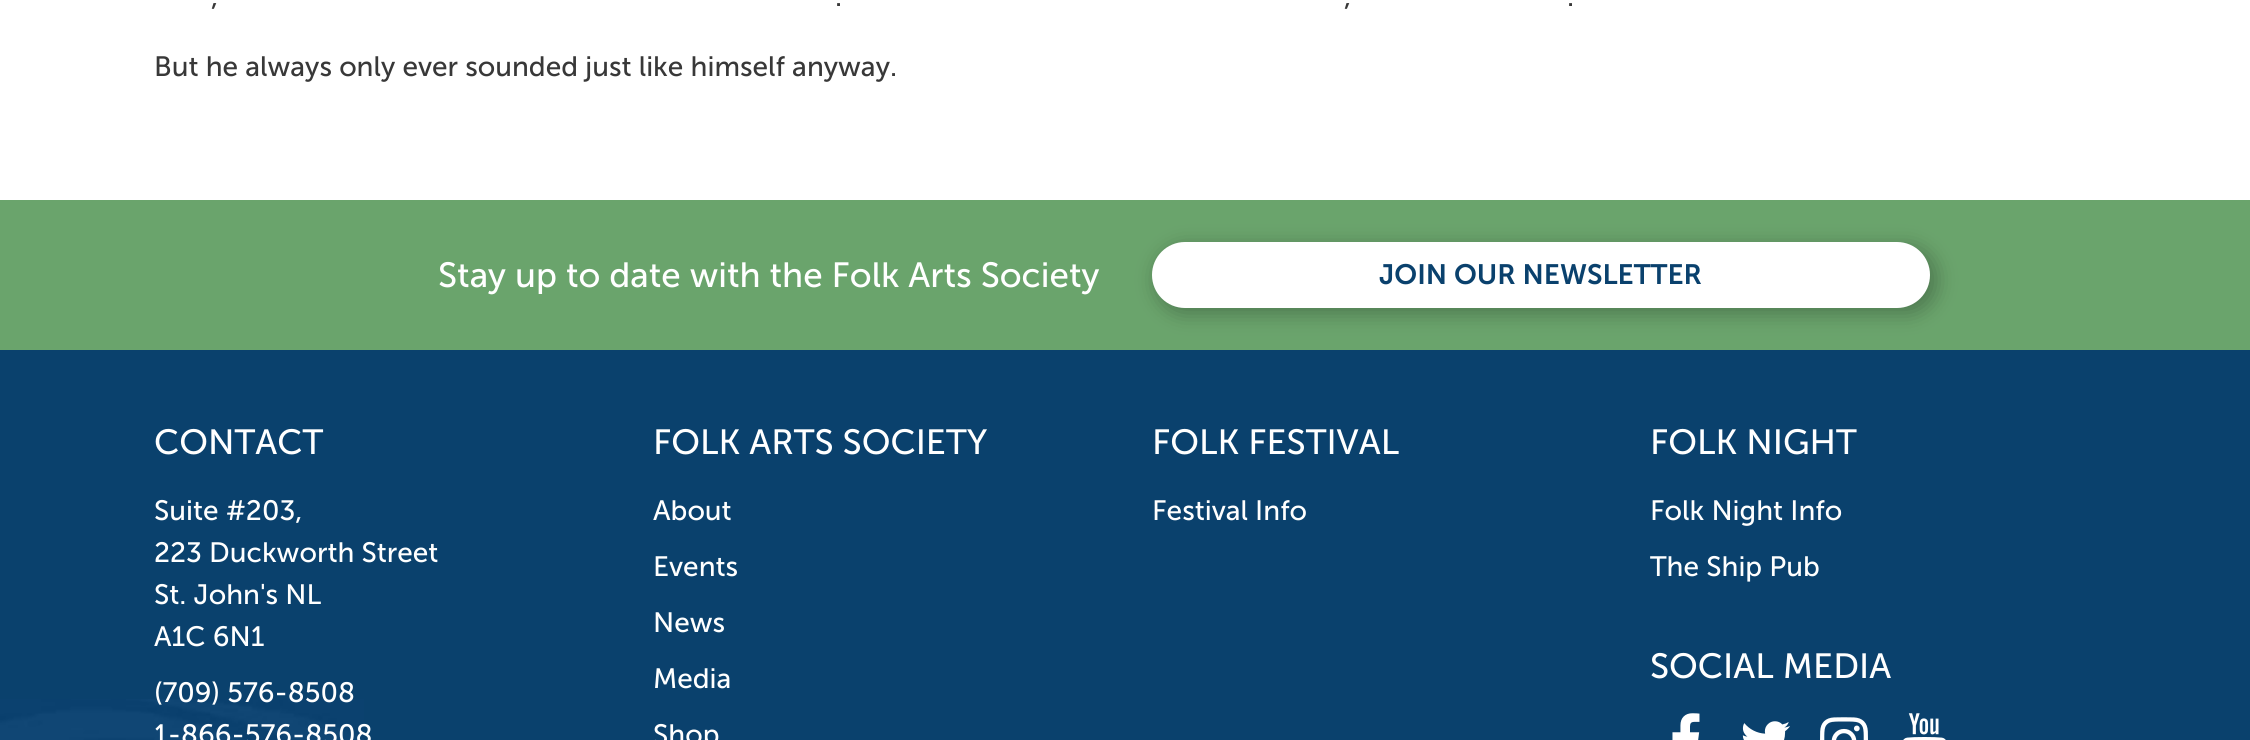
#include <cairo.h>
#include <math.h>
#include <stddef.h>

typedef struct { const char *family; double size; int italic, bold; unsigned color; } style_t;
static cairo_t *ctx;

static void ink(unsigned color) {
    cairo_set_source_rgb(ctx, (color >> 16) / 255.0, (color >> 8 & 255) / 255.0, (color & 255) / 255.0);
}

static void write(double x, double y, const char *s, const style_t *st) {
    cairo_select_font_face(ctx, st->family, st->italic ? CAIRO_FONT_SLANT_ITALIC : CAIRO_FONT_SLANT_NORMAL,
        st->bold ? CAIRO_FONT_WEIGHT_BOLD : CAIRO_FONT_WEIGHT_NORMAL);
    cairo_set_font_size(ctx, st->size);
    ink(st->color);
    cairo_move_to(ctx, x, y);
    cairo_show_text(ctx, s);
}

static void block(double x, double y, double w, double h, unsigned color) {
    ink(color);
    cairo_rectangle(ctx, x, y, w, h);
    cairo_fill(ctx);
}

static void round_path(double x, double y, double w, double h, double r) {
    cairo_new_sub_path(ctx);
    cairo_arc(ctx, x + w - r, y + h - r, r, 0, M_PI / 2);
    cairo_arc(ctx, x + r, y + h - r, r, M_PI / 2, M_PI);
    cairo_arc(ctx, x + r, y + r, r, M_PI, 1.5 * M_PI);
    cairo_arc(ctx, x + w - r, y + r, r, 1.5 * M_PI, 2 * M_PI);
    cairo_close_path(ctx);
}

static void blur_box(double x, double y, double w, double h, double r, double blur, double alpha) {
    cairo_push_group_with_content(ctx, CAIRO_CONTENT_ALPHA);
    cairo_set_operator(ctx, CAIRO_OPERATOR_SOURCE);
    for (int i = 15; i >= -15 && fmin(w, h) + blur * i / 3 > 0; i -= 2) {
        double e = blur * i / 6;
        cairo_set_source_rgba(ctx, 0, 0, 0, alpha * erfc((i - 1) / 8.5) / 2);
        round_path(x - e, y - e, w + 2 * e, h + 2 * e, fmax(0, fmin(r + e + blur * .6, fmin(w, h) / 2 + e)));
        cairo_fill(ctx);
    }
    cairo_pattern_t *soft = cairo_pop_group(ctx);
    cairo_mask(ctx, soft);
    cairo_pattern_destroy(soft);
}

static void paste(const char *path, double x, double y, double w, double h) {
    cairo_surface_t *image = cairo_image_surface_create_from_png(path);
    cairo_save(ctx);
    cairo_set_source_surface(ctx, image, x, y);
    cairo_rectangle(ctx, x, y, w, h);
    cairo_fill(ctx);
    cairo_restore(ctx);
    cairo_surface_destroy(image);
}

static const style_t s1 = {"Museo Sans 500", 28, 0, 0, 0x383838};
static const style_t s2 = {"Museo Sans 500", 35, 0, 0, 0xffffff};
static const style_t s3 = {"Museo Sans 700 SemiBold", 28, 0, 0, 0x0a416d};
static const style_t s4 = {"Museo Sans 500", 28, 0, 0, 0xffffff};

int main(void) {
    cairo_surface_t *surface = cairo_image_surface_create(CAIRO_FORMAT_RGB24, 2250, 740);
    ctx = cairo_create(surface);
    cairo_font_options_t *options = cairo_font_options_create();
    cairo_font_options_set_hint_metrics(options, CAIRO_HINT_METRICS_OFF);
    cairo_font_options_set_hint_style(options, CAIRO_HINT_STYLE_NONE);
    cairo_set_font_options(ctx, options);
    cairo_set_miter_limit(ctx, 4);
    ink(0xffffff);
    cairo_paint(ctx);
    write(211, 6, ",", &s1);
    write(835, 6, ".", &s1);
    write(1344, 6, ",", &s1);
    write(1567, 6, ".", &s1);
    write(154, 76, "But he always only ever sounded just like himself anyway.", &s1);
    block(0, 200, 2250, 150, 0x6aa46c);
    write(438, 287, "Stay up to date with the Folk Arts Society", &s2);
    ink(0x000000);
    blur_box(1157, 247, 779, 66, 33, 10.5, 0.28);
    ink(0xffffff);
    round_path(1152, 242, 778, 66, 33);
    cairo_fill(ctx);
    write(1379, 284, "JOIN OUR NEWSLETTER", &s3);
    block(0, 350, 2250, 390, 0x0a416d);
    paste("pic1.png", 0, 699, 364, 41);
    write(154, 454, "CONTACT", &s2);
    write(154, 520, "Suite #203,", &s4);
    write(154, 562, "223 Duckworth Street", &s4);
    write(154, 604, "St. John's NL", &s4);
    write(154, 646, "A1C 6N1", &s4);
    write(154, 702, "(709) 576-8508", &s4);
    write(154, 744, "1-866-576-8508", &s4);
    write(653, 454, "FOLK ARTS SOCIETY", &s2);
    write(653, 520, "About", &s4);
    write(653, 576, "Events", &s4);
    write(653, 632, "News", &s4);
    write(653, 688, "Media", &s4);
    write(653, 744, "Shop", &s4);
    write(1152, 454, "FOLK FESTIVAL", &s2);
    write(1152, 520, "Festival Info", &s4);
    write(1650, 454, "FOLK NIGHT", &s2);
    write(1650, 520, "Folk Night Info", &s4);
    write(1650, 576, "The Ship Pub", &s4);
    write(1650, 678, "SOCIAL MEDIA", &s2);
    paste("pic2.png", 1672, 713, 28, 27);
    paste("pic3.png", 1742, 721, 48, 19);
    paste("pic4.png", 1820, 717, 48, 23);
    paste("pic5.png", 1903, 713, 43, 27);
    cairo_surface_write_to_png(surface, "screenshot.png");
    cairo_font_options_destroy(options);
    cairo_destroy(ctx);
    cairo_surface_destroy(surface);
    return 0;
}
